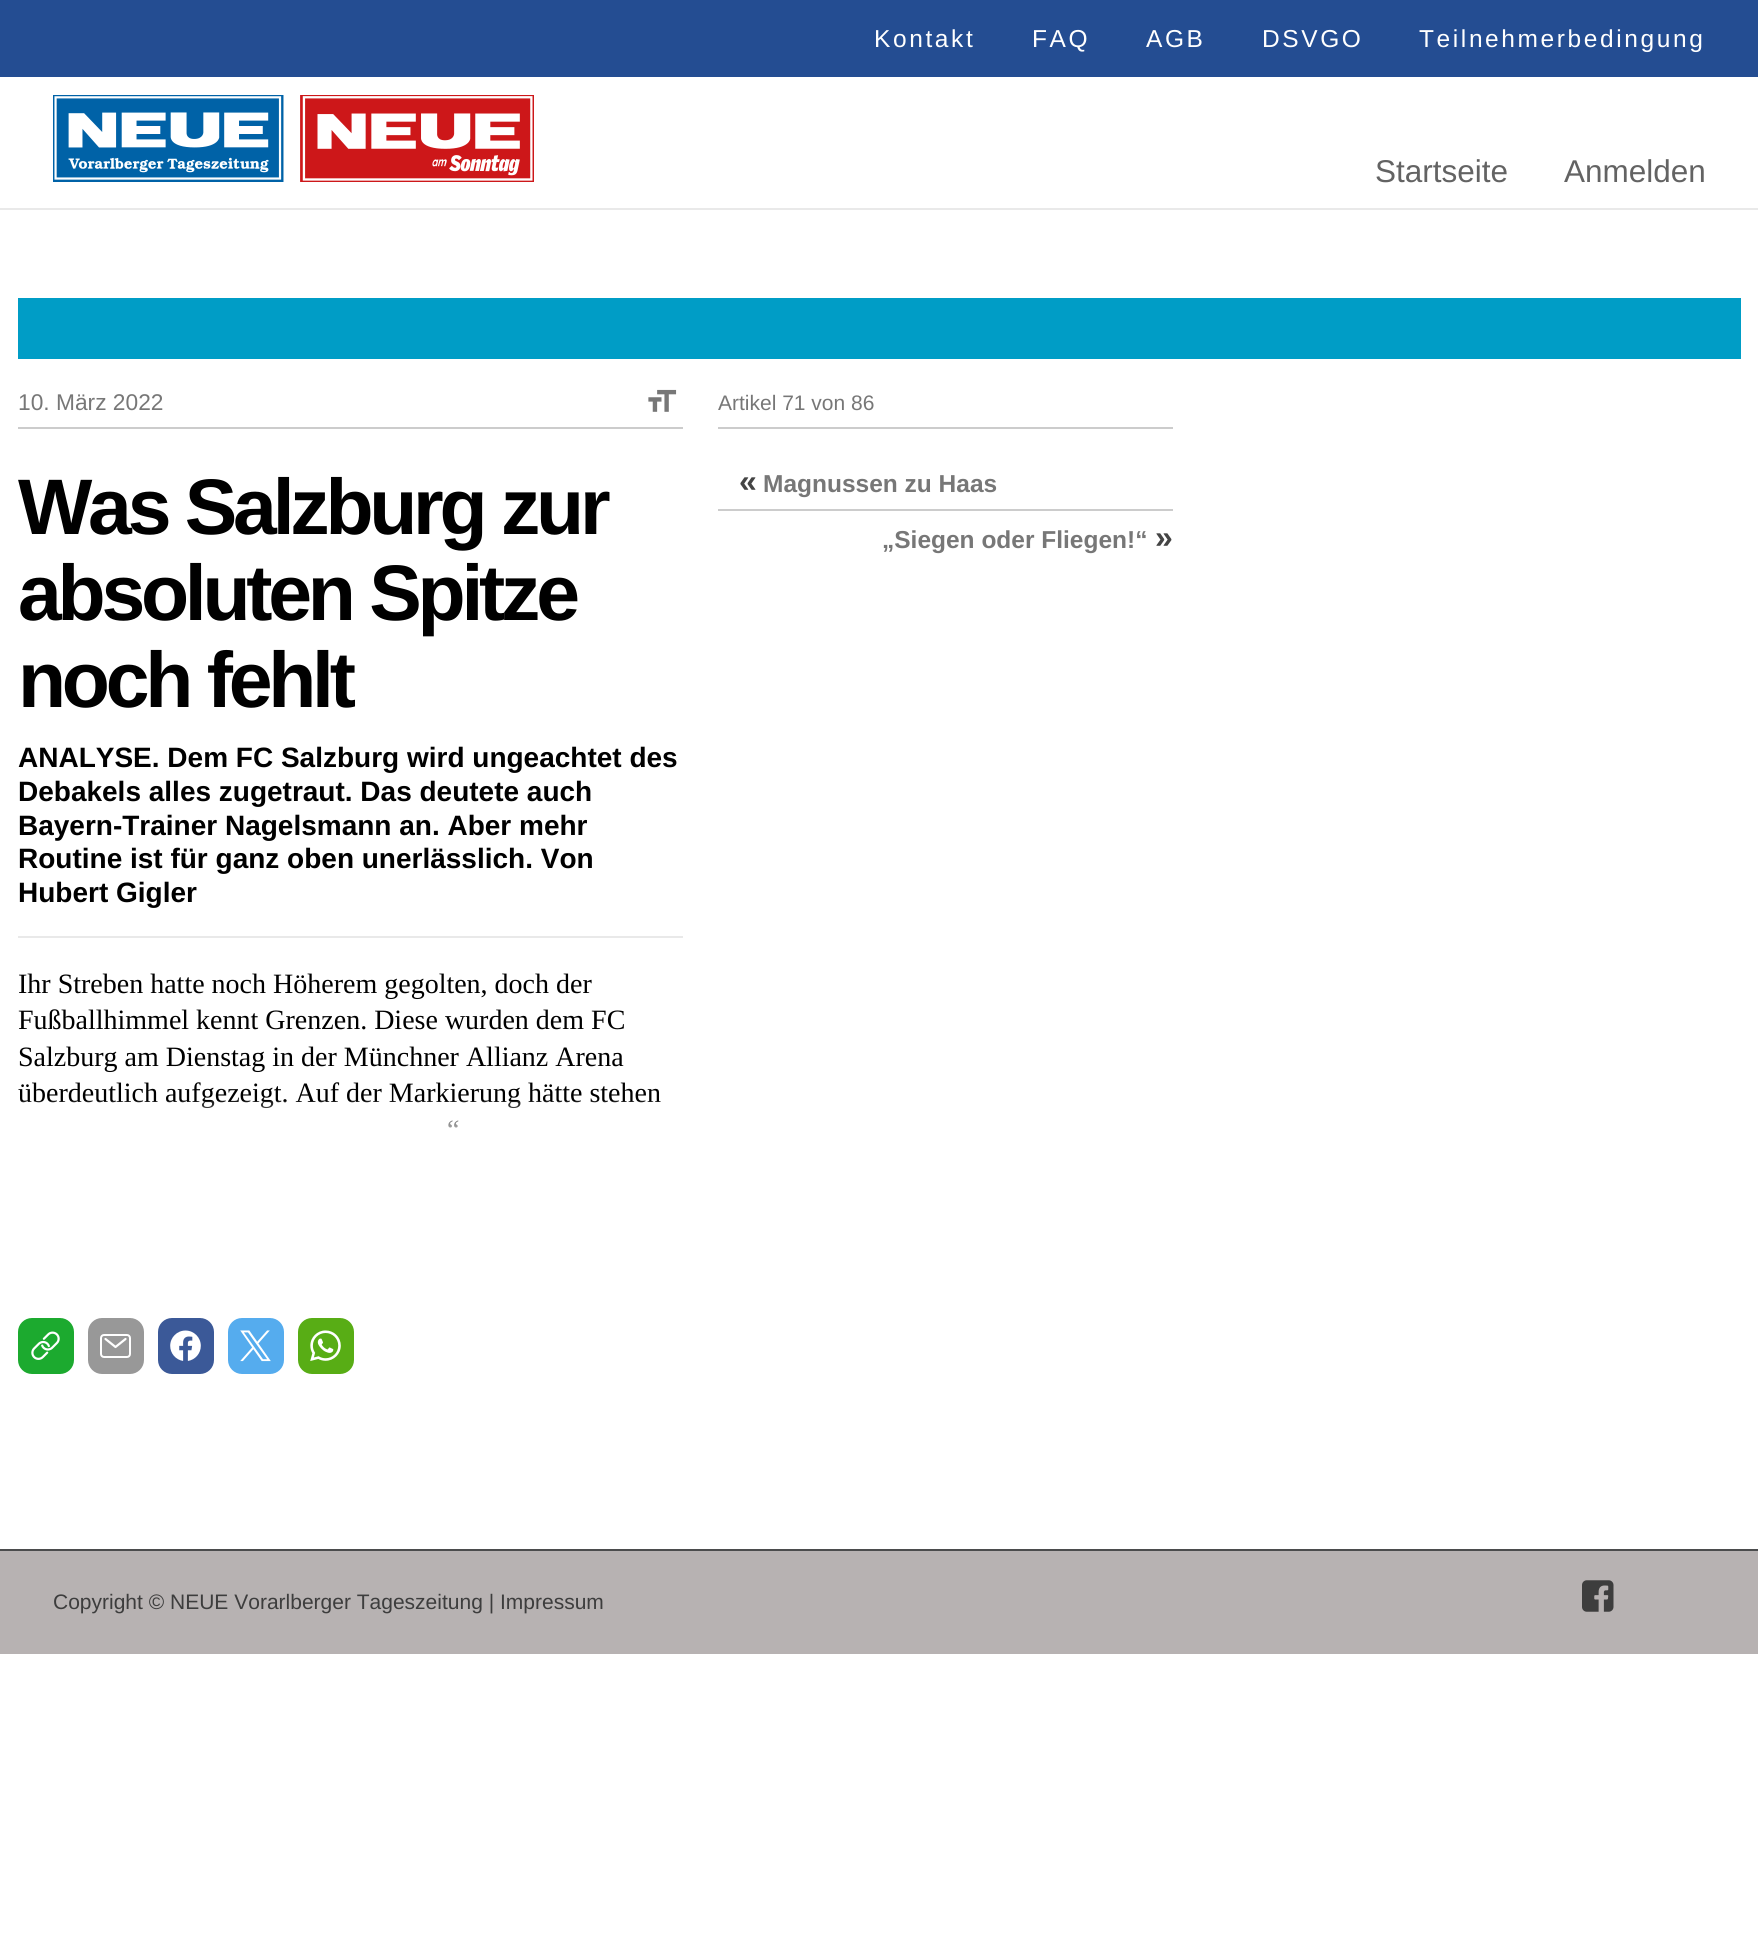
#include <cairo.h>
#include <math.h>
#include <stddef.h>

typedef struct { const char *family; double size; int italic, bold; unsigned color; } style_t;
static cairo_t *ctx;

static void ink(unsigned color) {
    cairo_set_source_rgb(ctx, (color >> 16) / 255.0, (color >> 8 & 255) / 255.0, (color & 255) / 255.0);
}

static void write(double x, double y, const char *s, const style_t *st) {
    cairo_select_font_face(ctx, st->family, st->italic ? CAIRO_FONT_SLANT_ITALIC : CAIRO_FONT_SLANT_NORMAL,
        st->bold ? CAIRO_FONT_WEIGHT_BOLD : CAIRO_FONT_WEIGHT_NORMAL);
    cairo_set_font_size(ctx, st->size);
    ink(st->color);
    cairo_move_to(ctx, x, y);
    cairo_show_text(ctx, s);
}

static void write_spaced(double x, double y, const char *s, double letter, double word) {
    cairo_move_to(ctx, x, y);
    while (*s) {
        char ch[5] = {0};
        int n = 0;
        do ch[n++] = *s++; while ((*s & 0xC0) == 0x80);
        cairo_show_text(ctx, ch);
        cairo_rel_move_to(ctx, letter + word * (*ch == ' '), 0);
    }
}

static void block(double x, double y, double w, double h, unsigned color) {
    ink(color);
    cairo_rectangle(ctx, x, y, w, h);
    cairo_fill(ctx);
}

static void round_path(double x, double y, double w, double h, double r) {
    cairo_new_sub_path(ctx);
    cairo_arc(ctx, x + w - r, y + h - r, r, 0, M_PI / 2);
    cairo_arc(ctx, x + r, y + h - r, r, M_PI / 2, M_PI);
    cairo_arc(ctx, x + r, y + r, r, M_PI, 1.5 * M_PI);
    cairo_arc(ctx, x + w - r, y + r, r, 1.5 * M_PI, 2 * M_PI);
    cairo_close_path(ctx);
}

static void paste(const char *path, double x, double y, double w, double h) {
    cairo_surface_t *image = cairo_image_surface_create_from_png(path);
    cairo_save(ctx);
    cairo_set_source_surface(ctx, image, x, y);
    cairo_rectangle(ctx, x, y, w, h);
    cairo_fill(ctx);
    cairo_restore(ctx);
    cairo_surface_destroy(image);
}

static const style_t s1 = {"Liberation Sans", 31.5, 0, 0, 0x636363};
static const style_t s2 = {"Liberation Sans", 22.75, 0, 0, 0x777777};
static const style_t s3 = {"Liberation Sans", 28, 0, 1, 0x000000};
static const style_t s4 = {"Liberation Serif", 28, 0, 0, 0x000000};
static const style_t s5 = {"Liberation Sans", 21, 0, 0, 0x777777};
static const style_t s6 = {"Liberation Sans", 32, 0, 1, 0x444444};
static const style_t s7 = {"Liberation Sans", 24.5, 0, 1, 0x777777};
static const style_t s8 = {"Liberation Sans", 21, 0, 0, 0x3d3d3d};

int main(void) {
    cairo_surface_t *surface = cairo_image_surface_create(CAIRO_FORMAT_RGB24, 1758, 1947);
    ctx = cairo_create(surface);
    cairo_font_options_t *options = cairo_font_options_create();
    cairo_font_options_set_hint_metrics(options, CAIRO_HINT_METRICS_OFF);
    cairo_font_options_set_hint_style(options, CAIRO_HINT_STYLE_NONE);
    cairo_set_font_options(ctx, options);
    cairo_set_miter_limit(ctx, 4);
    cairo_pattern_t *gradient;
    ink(0xffffff);
    cairo_paint(ctx);
    block(0, 208, 1758, 2, 0xe9e9e9);
    block(0, 0, 1758, 77, 0x244d92);
    cairo_select_font_face(ctx, "Liberation Sans", CAIRO_FONT_SLANT_NORMAL, CAIRO_FONT_WEIGHT_NORMAL);
    cairo_set_font_size(ctx, 24.5);
    ink(0xffffff);
    write_spaced(874, 47, "Kontakt", 2.6, 0);
    write_spaced(1032, 47, "FAQ", 2.6, 0);
    write_spaced(1146, 47, "AGB", 2.6, 0);
    write_spaced(1262, 47, "DSVGO", 2.6, 0);
    write_spaced(1419, 47, "Teilnehmerbedingung", 2.6, 0);
    paste("pic1.png", 53, 95, 481, 87);
    write(1375, 182, "Startseite", &s1);
    write(1564, 182, "Anmelden", &s1);
    block(18, 298, 1723, 61, 0x009dc6);
    block(18, 427, 665, 2, 0xcccccc);
    write(18, 410, "10. März 2022", &s2);
    paste("pic2.png", 648, 389, 29, 23);
    block(18, 936, 665, 2, 0xe9e9e9);
    cairo_select_font_face(ctx, "Liberation Sans", CAIRO_FONT_SLANT_NORMAL, CAIRO_FONT_WEIGHT_BOLD);
    cairo_set_font_size(ctx, 78.75);
    ink(0x000000);
    write_spaced(18, 534, "Was Salzburg zur", -4.25, 0);
    write_spaced(18, 620, "absoluten Spitze", -4.25, 0);
    write_spaced(18, 707, "noch fehlt", -4.25, 0);
    write(18, 767, "ANALYSE. Dem FC Salzburg wird ungeachtet des", &s3);
    write(18, 801, "Debakels alles zugetraut. Das deutete auch", &s3);
    write(18, 835, "Bayern-Trainer Nagelsmann an. Aber mehr", &s3);
    write(18, 868, "Routine ist für ganz oben unerlässlich. Von", &s3);
    write(18, 902, "Hubert Gigler", &s3);
    write(18, 993, "Ihr Streben hatte noch Höherem gegolten, doch der", &s4);
    write(18, 1029, "Fußballhimmel kennt Grenzen. Diese wurden dem FC", &s4);
    write(18, 1066, "Salzburg am Dienstag in der Münchner Allianz Arena", &s4);
    write(18, 1102, "überdeutlich aufgezeigt. Auf der Markierung hätte stehen", &s4);
    write(447, 1139, "“", &s4);
    gradient = cairo_pattern_create_linear(350, 1213, 350, 1101);
    cairo_pattern_add_color_stop_rgba(gradient, 0.6, 1, 1, 1, 1);
    cairo_pattern_add_color_stop_rgba(gradient, 1, 1, 1, 1, 0.1);
    cairo_set_source(ctx, gradient);
    cairo_pattern_destroy(gradient);
    cairo_rectangle(ctx, 20, 1101, 640, 27);
    cairo_fill(ctx);
    ink(0x1caa2f);
    round_path(18, 1318, 56, 56, 14);
    cairo_fill(ctx);
    paste("pic3.png", 31, 1331, 29, 29);
    ink(0x989898);
    round_path(88, 1318, 56, 56, 14);
    cairo_fill(ctx);
    round_path(101, 1335, 29, 22, 3);
    ink(0xffffff);
    cairo_stroke(ctx);
    cairo_new_path(ctx);
    cairo_move_to(ctx, 105.5, 1339);
    cairo_line_to(ctx, 115.5, 1347);
    cairo_line_to(ctx, 125.5, 1339);
    cairo_set_line_width(ctx, 2.2);
    cairo_set_line_cap(ctx, CAIRO_LINE_CAP_ROUND);
    cairo_set_line_join(ctx, CAIRO_LINE_JOIN_ROUND);
    cairo_stroke(ctx);
    ink(0x3b5998);
    round_path(158, 1318, 56, 56, 14);
    cairo_fill(ctx);
    paste("pic4.png", 170, 1330, 31, 31);
    ink(0x55acee);
    round_path(228, 1318, 56, 56, 14);
    cairo_fill(ctx);
    paste("pic5.png", 240, 1330, 31, 32);
    ink(0x58ad15);
    round_path(298, 1318, 56, 56, 14);
    cairo_fill(ctx);
    paste("pic6.png", 310, 1330, 31, 31);
    block(718, 427, 455, 2, 0xcccccc);
    write(718, 410, "Artikel 71 von 86", &s5);
    block(718, 509, 455, 2, 0xcccccc);
    write(739, 492, "«", &s6);
    write(763, 492, "Magnussen zu Haas", &s7);
    write(882, 548, "„Siegen oder Fliegen!“", &s7);
    write(1155, 548, "»", &s6);
    block(0, 1551, 1758, 103, 0xb7b2b2);
    block(0, 1549, 1758, 2, 0x4b4c4d);
    write(53, 1609, "Copyright © NEUE Vorarlberger Tageszeitung | Impressum", &s8);
    paste("pic7.png", 1582, 1580, 32, 32);
    cairo_surface_write_to_png(surface, "screenshot.png");
    cairo_font_options_destroy(options);
    cairo_destroy(ctx);
    cairo_surface_destroy(surface);
    return 0;
}
